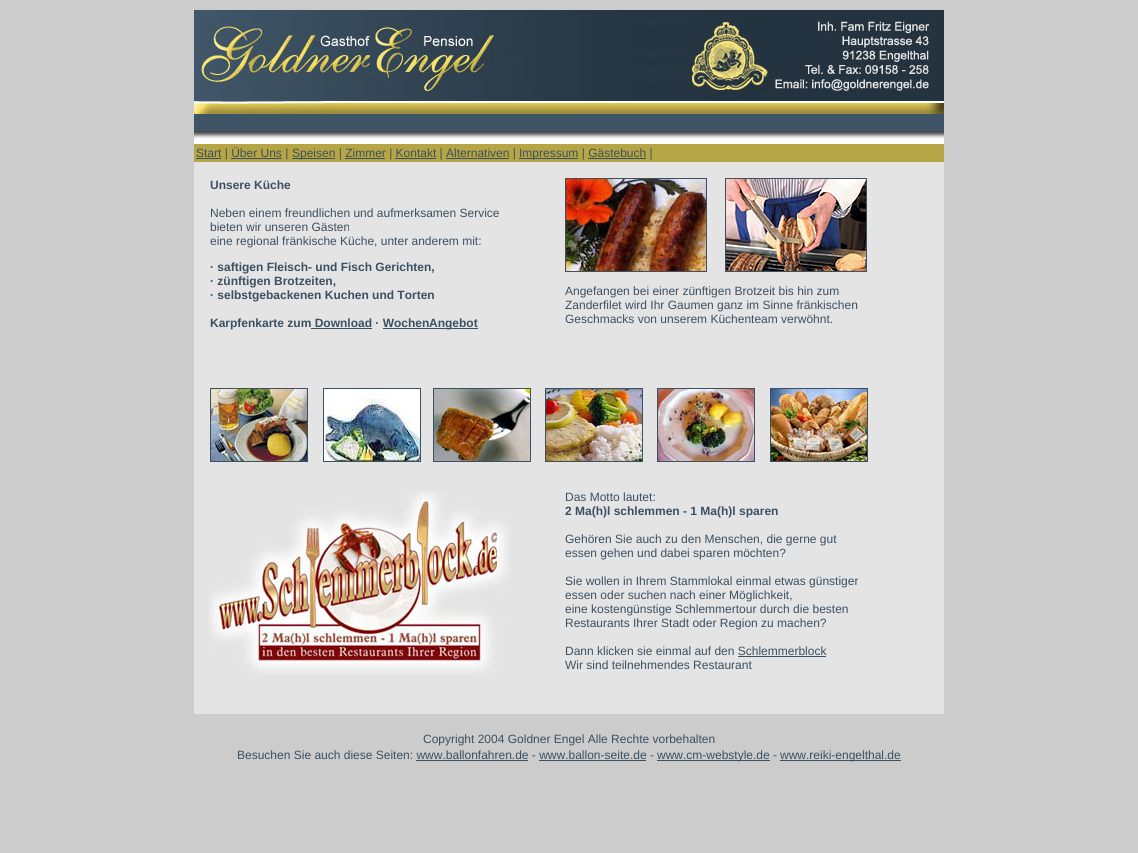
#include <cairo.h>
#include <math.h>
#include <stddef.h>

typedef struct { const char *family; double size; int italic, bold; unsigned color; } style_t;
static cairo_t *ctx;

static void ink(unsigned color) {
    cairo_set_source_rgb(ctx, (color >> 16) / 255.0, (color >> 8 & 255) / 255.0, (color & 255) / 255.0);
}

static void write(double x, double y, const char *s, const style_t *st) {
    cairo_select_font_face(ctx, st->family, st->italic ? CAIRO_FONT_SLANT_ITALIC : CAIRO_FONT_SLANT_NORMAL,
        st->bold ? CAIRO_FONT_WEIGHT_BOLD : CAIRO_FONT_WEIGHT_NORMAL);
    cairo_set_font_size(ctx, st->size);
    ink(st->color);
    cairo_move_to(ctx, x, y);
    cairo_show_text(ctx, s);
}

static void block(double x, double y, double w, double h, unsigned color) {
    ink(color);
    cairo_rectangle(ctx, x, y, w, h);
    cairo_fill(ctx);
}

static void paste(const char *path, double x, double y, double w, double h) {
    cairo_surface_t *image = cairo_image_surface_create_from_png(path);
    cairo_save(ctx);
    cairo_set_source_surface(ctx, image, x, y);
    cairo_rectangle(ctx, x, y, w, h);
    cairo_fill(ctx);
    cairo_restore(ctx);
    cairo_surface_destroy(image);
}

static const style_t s1 = {"Liberation Sans", 12, 0, 0, 0x3b5061};
static const style_t s2 = {"Liberation Sans", 12, 0, 1, 0x3b5061};

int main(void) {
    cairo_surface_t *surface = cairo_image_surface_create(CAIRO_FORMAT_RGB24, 1138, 853);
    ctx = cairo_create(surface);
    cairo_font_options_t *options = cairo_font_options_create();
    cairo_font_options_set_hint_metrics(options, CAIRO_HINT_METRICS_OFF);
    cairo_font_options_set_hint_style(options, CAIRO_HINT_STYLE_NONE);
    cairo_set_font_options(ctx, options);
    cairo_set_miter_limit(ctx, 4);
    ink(0xcccccc);
    cairo_paint(ctx);
    paste("pic1.png", 194, 10, 436, 134);
    paste("pic2.png", 630, 10, 59, 134);
    paste("pic3.png", 689, 10, 255, 134);
    block(194, 144, 750, 18, 0xb5a545);
    block(196, 158, 25, 1, 0x3b5061);
    write(196, 157, "Start | Über Uns |", &s1);
    block(292, 158, 43, 1, 0x3b5061);
    write(292, 157, "Speisen | Zimmer | Kontakt | Alternativen |", &s1);
    block(519, 158, 59, 1, 0x3b5061);
    write(519, 157, "Impressum | Gästebuch |", &s1);
    block(231, 158, 51, 1, 0x3b5061);
    block(345, 158, 40, 1, 0x3b5061);
    block(395, 158, 41, 1, 0x3b5061);
    block(446, 158, 63, 1, 0x3b5061);
    block(588, 158, 58, 1, 0x3b5061);
    block(194, 162, 750, 552, 0xe4e4e4);
    write(210, 189, "Unsere Küche", &s2);
    write(210, 217, "Neben einem freundlichen und aufmerksamen Service", &s1);
    write(210, 231, "bieten wir unseren Gästen", &s1);
    write(210, 245, "eine regional fränkische Küche, unter anderem mit:", &s1);
    write(210, 271, "· saftigen Fleisch- und Fisch Gerichten,", &s2);
    write(210, 285, "· zünftigen Brotzeiten,", &s2);
    write(210, 299, "· selbstgebackenen Kuchen und Torten", &s2);
    write(210, 327, "Karpfenkarte zum Download · Wochen", &s2);
    block(311, 328, 61, 1, 0x3b5061);
    block(383, 328, 95, 1, 0x3b5061);
    write(429, 327, "Angebot", &s2);
    cairo_rectangle(ctx, 565.5, 178.5, 141, 93);
    cairo_set_line_width(ctx, 1);
    cairo_stroke(ctx);
    paste("pic4.png", 566, 179, 140, 92);
    cairo_rectangle(ctx, 725.5, 178.5, 141, 93);
    cairo_stroke(ctx);
    paste("pic5.png", 726, 179, 140, 92);
    write(565, 295, "Angefangen bei einer zünftigen Brotzeit bis hin zum", &s1);
    write(565, 309, "Zanderfilet wird Ihr Gaumen ganz im Sinne fränkischen", &s1);
    write(565, 323, "Geschmacks von unserem Küchenteam verwöhnt.", &s1);
    cairo_rectangle(ctx, 210.5, 388.5, 97, 73);
    cairo_stroke(ctx);
    paste("pic6.png", 211, 389, 96, 72);
    cairo_rectangle(ctx, 323.5, 388.5, 97, 73);
    cairo_stroke(ctx);
    paste("pic7.png", 324, 389, 96, 72);
    cairo_rectangle(ctx, 433.5, 388.5, 97, 73);
    cairo_stroke(ctx);
    paste("pic8.png", 434, 389, 96, 72);
    cairo_rectangle(ctx, 545.5, 388.5, 97, 73);
    cairo_stroke(ctx);
    paste("pic9.png", 546, 389, 96, 72);
    cairo_rectangle(ctx, 657.5, 388.5, 97, 73);
    cairo_stroke(ctx);
    paste("pic10.png", 658, 389, 96, 72);
    cairo_rectangle(ctx, 770.5, 388.5, 97, 73);
    cairo_stroke(ctx);
    paste("pic11.png", 771, 389, 96, 72);
    paste("pic12.png", 209, 491, 301, 184);
    write(565, 501, "Das Motto lautet:", &s1);
    write(565, 515, "2 Ma(h)l schlemmen - 1 Ma(h)l sparen", &s2);
    write(565, 543, "Gehören Sie auch zu den Menschen, die gerne gut", &s1);
    write(565, 557, "essen gehen und dabei sparen möchten?", &s1);
    write(565, 585, "Sie wollen in Ihrem Stammlokal einmal etwas günstiger", &s1);
    write(565, 599, "essen oder suchen nach einer Möglichkeit,", &s1);
    write(565, 613, "eine kostengünstige Schlemmertour durch die besten", &s1);
    write(565, 627, "Restaurants Ihrer Stadt oder Region zu machen?", &s1);
    write(565, 655, "Dann klicken sie einmal auf den Schlemmerblock", &s1);
    block(738, 656, 88, 1, 0x3b5061);
    write(565, 669, "Wir sind teilnehmendes Restaurant", &s1);
    write(423, 743, "Copyright 2004 Goldner Engel Alle Rechte vorbehalten", &s1);
    write(237, 759, "Besuchen Sie auch diese Seiten: www.ballonfahren.de - www.ballon-seite.de -", &s1);
    block(657, 760, 113, 1, 0x3b5061);
    write(657, 759, "www.cm-webstyle.de -", &s1);
    block(780, 760, 121, 1, 0x3b5061);
    write(780, 759, "www.reiki-engelthal.de", &s1);
    block(416, 760, 112, 1, 0x3b5061);
    block(539, 760, 107, 1, 0x3b5061);
    cairo_surface_write_to_png(surface, "screenshot.png");
    cairo_font_options_destroy(options);
    cairo_destroy(ctx);
    cairo_surface_destroy(surface);
    return 0;
}
